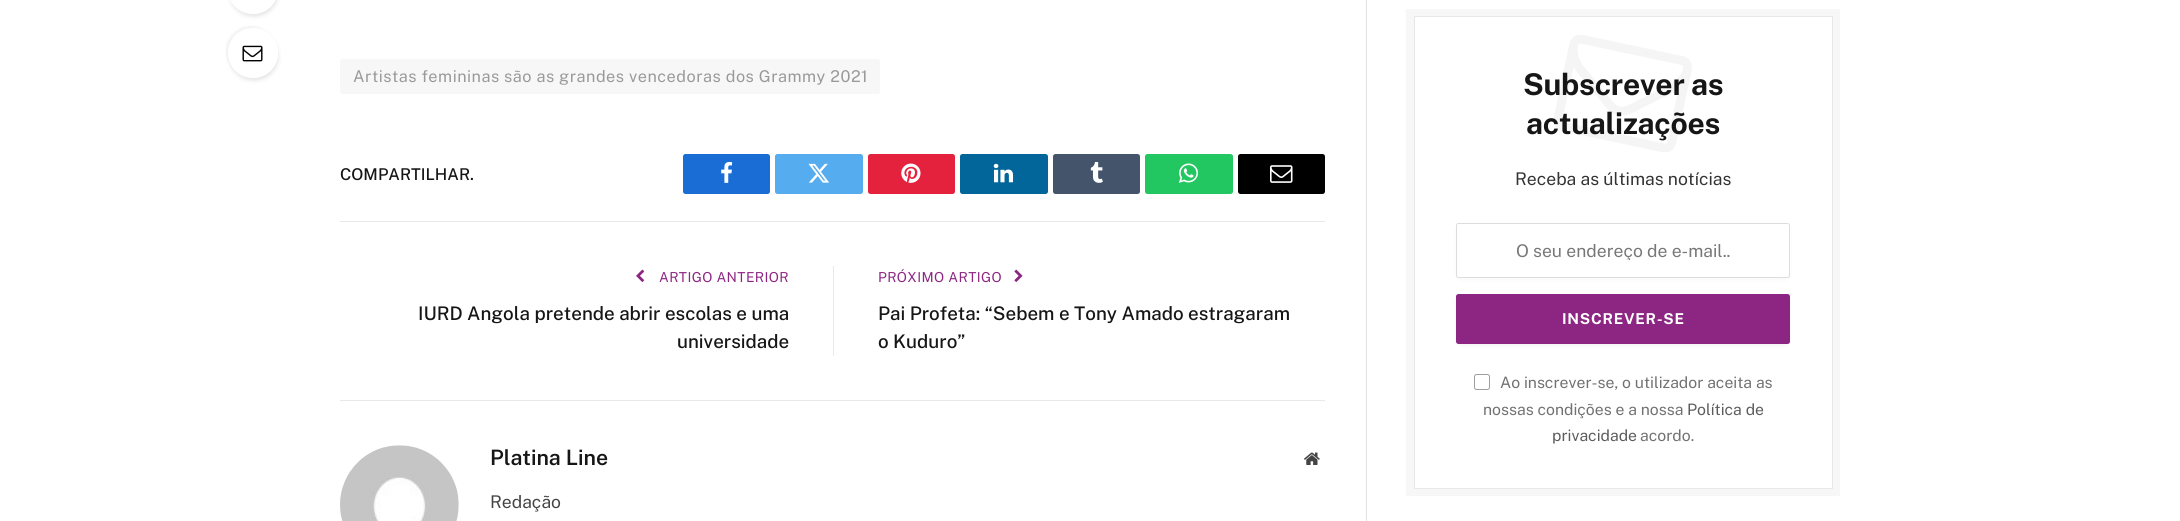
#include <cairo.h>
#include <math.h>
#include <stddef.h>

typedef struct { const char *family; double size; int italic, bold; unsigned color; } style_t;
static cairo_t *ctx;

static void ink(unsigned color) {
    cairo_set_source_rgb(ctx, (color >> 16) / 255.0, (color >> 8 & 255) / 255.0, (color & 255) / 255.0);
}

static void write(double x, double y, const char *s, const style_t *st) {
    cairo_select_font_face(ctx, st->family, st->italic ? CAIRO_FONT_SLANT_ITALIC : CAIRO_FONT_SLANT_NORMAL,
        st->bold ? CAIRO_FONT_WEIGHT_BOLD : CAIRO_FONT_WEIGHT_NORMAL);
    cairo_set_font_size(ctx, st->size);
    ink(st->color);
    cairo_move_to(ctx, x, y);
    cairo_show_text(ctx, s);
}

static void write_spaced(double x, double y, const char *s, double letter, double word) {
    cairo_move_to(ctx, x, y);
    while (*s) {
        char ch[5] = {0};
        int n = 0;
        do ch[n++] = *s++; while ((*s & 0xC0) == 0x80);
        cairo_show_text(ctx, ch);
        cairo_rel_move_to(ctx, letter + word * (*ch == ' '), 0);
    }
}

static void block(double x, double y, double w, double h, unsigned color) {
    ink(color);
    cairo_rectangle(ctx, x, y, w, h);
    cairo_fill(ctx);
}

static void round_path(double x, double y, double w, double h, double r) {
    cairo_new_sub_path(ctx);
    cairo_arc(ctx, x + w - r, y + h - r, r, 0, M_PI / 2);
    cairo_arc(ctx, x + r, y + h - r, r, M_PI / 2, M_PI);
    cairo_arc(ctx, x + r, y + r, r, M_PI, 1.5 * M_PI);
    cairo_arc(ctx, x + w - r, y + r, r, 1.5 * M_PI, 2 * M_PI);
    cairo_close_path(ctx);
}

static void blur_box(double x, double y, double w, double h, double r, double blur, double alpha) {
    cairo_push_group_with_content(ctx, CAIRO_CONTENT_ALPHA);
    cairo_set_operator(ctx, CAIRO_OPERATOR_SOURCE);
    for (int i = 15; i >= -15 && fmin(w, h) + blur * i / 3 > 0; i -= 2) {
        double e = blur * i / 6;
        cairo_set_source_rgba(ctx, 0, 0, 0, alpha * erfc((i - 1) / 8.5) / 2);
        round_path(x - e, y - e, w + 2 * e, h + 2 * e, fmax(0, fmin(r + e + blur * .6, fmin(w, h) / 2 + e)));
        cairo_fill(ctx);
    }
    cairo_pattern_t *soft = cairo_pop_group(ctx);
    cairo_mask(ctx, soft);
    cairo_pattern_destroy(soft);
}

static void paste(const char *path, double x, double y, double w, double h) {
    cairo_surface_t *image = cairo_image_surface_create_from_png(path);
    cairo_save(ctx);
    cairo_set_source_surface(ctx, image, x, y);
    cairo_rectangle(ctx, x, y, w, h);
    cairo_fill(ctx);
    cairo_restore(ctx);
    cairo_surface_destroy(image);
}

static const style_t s1 = {"Public Sans Medium", 16.25, 0, 0, 0x161616};
static const style_t s2 = {"Public Sans Medium", 18.75, 0, 0, 0x161616};
static const style_t s3 = {"Public Sans SemiBold", 21.25, 0, 0, 0x161616};
static const style_t s4 = {"Public Sans", 17.5, 0, 0, 0x444444};
static const style_t s5 = {"Public Sans", 17.5, 0, 0, 0x333333};
static const style_t s6 = {"Public Sans", 17.5, 0, 0, 0x777777};
static const style_t s7 = {"Public Sans", 15.75, 0, 0, 0x717171};
static const style_t s8 = {"Public Sans", 15.75, 0, 0, 0x5c5c5c};

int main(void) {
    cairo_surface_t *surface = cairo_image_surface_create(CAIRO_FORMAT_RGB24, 2180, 521);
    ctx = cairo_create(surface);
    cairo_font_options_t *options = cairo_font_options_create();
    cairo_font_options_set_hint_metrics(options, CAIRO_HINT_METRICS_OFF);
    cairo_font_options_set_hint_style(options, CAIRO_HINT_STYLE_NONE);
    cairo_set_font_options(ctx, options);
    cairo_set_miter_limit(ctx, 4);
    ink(0xffffff);
    cairo_paint(ctx);
    cairo_save(ctx);
    cairo_set_fill_rule(ctx, CAIRO_FILL_RULE_EVEN_ODD);
    cairo_new_path(ctx);
    cairo_move_to(ctx, 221, 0);
    cairo_line_to(ctx, 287, 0);
    cairo_line_to(ctx, 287, 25);
    cairo_line_to(ctx, 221, 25);
    cairo_close_path(ctx);
    cairo_move_to(ctx, 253, -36);
    cairo_curve_to(ctx, 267, -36, 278, -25, 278, -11);
    cairo_curve_to(ctx, 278, 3, 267, 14, 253, 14);
    cairo_curve_to(ctx, 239, 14, 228, 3, 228, -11);
    cairo_curve_to(ctx, 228, -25, 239, -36, 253, -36);
    cairo_close_path(ctx);
    cairo_clip(ctx);
    ink(0x000000);
    blur_box(230, -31, 48, 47, 23.5, 2.5, 0.12);
    cairo_restore(ctx);
    cairo_save(ctx);
    cairo_set_fill_rule(ctx, CAIRO_FILL_RULE_EVEN_ODD);
    cairo_new_path(ctx);
    cairo_move_to(ctx, 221, 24);
    cairo_line_to(ctx, 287, 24);
    cairo_line_to(ctx, 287, 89);
    cairo_line_to(ctx, 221, 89);
    cairo_close_path(ctx);
    cairo_move_to(ctx, 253, 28);
    cairo_curve_to(ctx, 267, 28, 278, 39, 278, 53);
    cairo_curve_to(ctx, 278, 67, 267, 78, 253, 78);
    cairo_curve_to(ctx, 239, 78, 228, 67, 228, 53);
    cairo_curve_to(ctx, 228, 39, 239, 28, 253, 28);
    cairo_close_path(ctx);
    cairo_clip(ctx);
    ink(0x000000);
    blur_box(230, 33, 48, 47, 23.5, 2.5, 0.12);
    cairo_restore(ctx);
    cairo_save(ctx);
    cairo_set_fill_rule(ctx, CAIRO_FILL_RULE_EVEN_ODD);
    cairo_new_path(ctx);
    cairo_move_to(ctx, 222, 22);
    cairo_line_to(ctx, 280, 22);
    cairo_line_to(ctx, 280, 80);
    cairo_line_to(ctx, 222, 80);
    cairo_close_path(ctx);
    cairo_move_to(ctx, 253, 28);
    cairo_curve_to(ctx, 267, 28, 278, 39, 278, 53);
    cairo_curve_to(ctx, 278, 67, 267, 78, 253, 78);
    cairo_curve_to(ctx, 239, 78, 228, 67, 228, 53);
    cairo_curve_to(ctx, 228, 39, 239, 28, 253, 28);
    cairo_close_path(ctx);
    cairo_clip(ctx);
    ink(0x000000);
    blur_box(226, 26, 50, 50, 25, 1, 0.05);
    cairo_restore(ctx);
    paste("pic1.png", 242, 45, 21, 17);
    ink(0xf7f7f7);
    round_path(340, 59, 540, 35, 2.5);
    cairo_fill(ctx);
    cairo_select_font_face(ctx, "Public Sans", CAIRO_FONT_SLANT_NORMAL, CAIRO_FONT_WEIGHT_NORMAL);
    cairo_set_font_size(ctx, 16.25);
    ink(0x999999);
    write_spaced(353, 82, "Artistas femininas são as grandes vencedoras dos Grammy 2021", 0.5, 0);
    write(340, 180, "COMPARTILHAR.", &s1);
    ink(0x1a6dd4);
    round_path(683, 154, 87, 40, 2.5);
    cairo_fill(ctx);
    paste("pic2.png", 721, 162, 12, 21);
    ink(0x55acef);
    round_path(775, 154, 88, 40, 2.5);
    cairo_fill(ctx);
    paste("pic3.png", 808, 163, 21, 20);
    ink(0xe4223e);
    round_path(868, 154, 87, 40, 2.5);
    cairo_fill(ctx);
    paste("pic4.png", 901, 163, 20, 20);
    ink(0x02669a);
    round_path(960, 154, 88, 40, 2.5);
    cairo_fill(ctx);
    paste("pic5.png", 993, 163, 21, 20);
    ink(0x44546b);
    round_path(1053, 154, 87, 40, 2.5);
    cairo_fill(ctx);
    paste("pic6.png", 1090, 162, 13, 21);
    ink(0x23c761);
    round_path(1145, 154, 88, 40, 2.5);
    cairo_fill(ctx);
    paste("pic7.png", 1178, 163, 20, 20);
    ink(0x000000);
    round_path(1238, 154, 87, 40, 2.5);
    cairo_fill(ctx);
    paste("pic8.png", 1270, 165, 23, 18);
    block(340, 221, 985, 1, 0xe8e8e8);
    paste("pic9.png", 636, 269, 9, 13);
    cairo_select_font_face(ctx, "Public Sans", CAIRO_FONT_SLANT_NORMAL, CAIRO_FONT_WEIGHT_NORMAL);
    cairo_set_font_size(ctx, 13.75);
    ink(0x8c2682);
    write_spaced(659, 282, "ARTIGO ANTERIOR", 0.4, 0);
    write(418, 320, "IURD Angola pretende abrir escolas e uma", &s2);
    write(677, 348, "universidade", &s2);
    block(833, 266, 1, 90, 0xe8e8e8);
    cairo_select_font_face(ctx, "Public Sans", CAIRO_FONT_SLANT_NORMAL, CAIRO_FONT_WEIGHT_NORMAL);
    cairo_set_font_size(ctx, 13.75);
    ink(0x8c2682);
    write_spaced(878, 282, "PRÓXIMO ARTIGO", 0.4, 0);
    paste("pic10.png", 1014, 269, 9, 13);
    write(878, 320, "Pai Profeta: “Sebem e Tony Amado estragaram", &s2);
    write(878, 348, "o Kuduro”", &s2);
    block(340, 400, 985, 1, 0xe8e8e8);
    paste("pic11.png", 340, 445, 119, 76);
    write(490, 465, "Platina Line", &s3);
    paste("pic12.png", 1304, 452, 16, 13);
    write(490, 508, "Redação", &s4);
    block(1366, 0, 1, 521, 0xe2e2e2);
    cairo_rectangle(ctx, 1410, 13, 426, 479);
    ink(0xf7f7f7);
    cairo_set_line_width(ctx, 8);
    cairo_stroke(ctx);
    cairo_rectangle(ctx, 1414.5, 16.5, 418, 472);
    ink(0xe8e8e8);
    cairo_set_line_width(ctx, 1);
    cairo_stroke(ctx);
    cairo_select_font_face(ctx, "Public Sans", CAIRO_FONT_SLANT_NORMAL, CAIRO_FONT_WEIGHT_BOLD);
    cairo_set_font_size(ctx, 30);
    ink(0x161616);
    write_spaced(1523, 95, "Subscrever as", -0.25, 0);
    write_spaced(1526, 134, "actualizações", -0.25, 0);
    paste("pic13.png", 1554, 35, 138, 117);
    write(1515, 185, "Receba as últimas notícias", &s5);
    ink(0x000000);
    blur_box(1461, 230, 324, 45, 0, 4.5, 0.1);
    ink(0xffffff);
    round_path(1456.5, 223.5, 333, 54, 2);
    cairo_fill_preserve(ctx);
    ink(0xdddddd);
    cairo_stroke(ctx);
    cairo_save(ctx);
    cairo_rectangle(ctx, 1473, 240, 301, 20);
    cairo_clip(ctx);
    write(1516, 257, "O seu endereço de e-mail..", &s6);
    cairo_restore(ctx);
    ink(0x000000);
    blur_box(1461, 301, 324, 40, 0, 4.5, 0.16);
    ink(0x8c2682);
    round_path(1456, 294, 334, 50, 2.5);
    cairo_fill(ctx);
    cairo_select_font_face(ctx, "Public Sans", CAIRO_FONT_SLANT_NORMAL, CAIRO_FONT_WEIGHT_BOLD);
    cairo_set_font_size(ctx, 15);
    ink(0xffffff);
    write_spaced(1562, 324, "INSCREVER-SE", 0.75, 0);
    round_path(1474.5, 374.5, 15, 15, 2);
    ink(0x9f9f9f);
    cairo_stroke(ctx);
    write(1500, 388, "Ao inscrever-se, o utilizador aceita as", &s7);
    write(1483, 415, "nossas condições e a nossa", &s7);
    write(1687, 415, "Política de", &s8);
    write(1552, 441, "privacidade", &s8);
    write(1640, 441, "acordo.", &s7);
    cairo_surface_write_to_png(surface, "screenshot.png");
    cairo_font_options_destroy(options);
    cairo_destroy(ctx);
    cairo_surface_destroy(surface);
    return 0;
}
